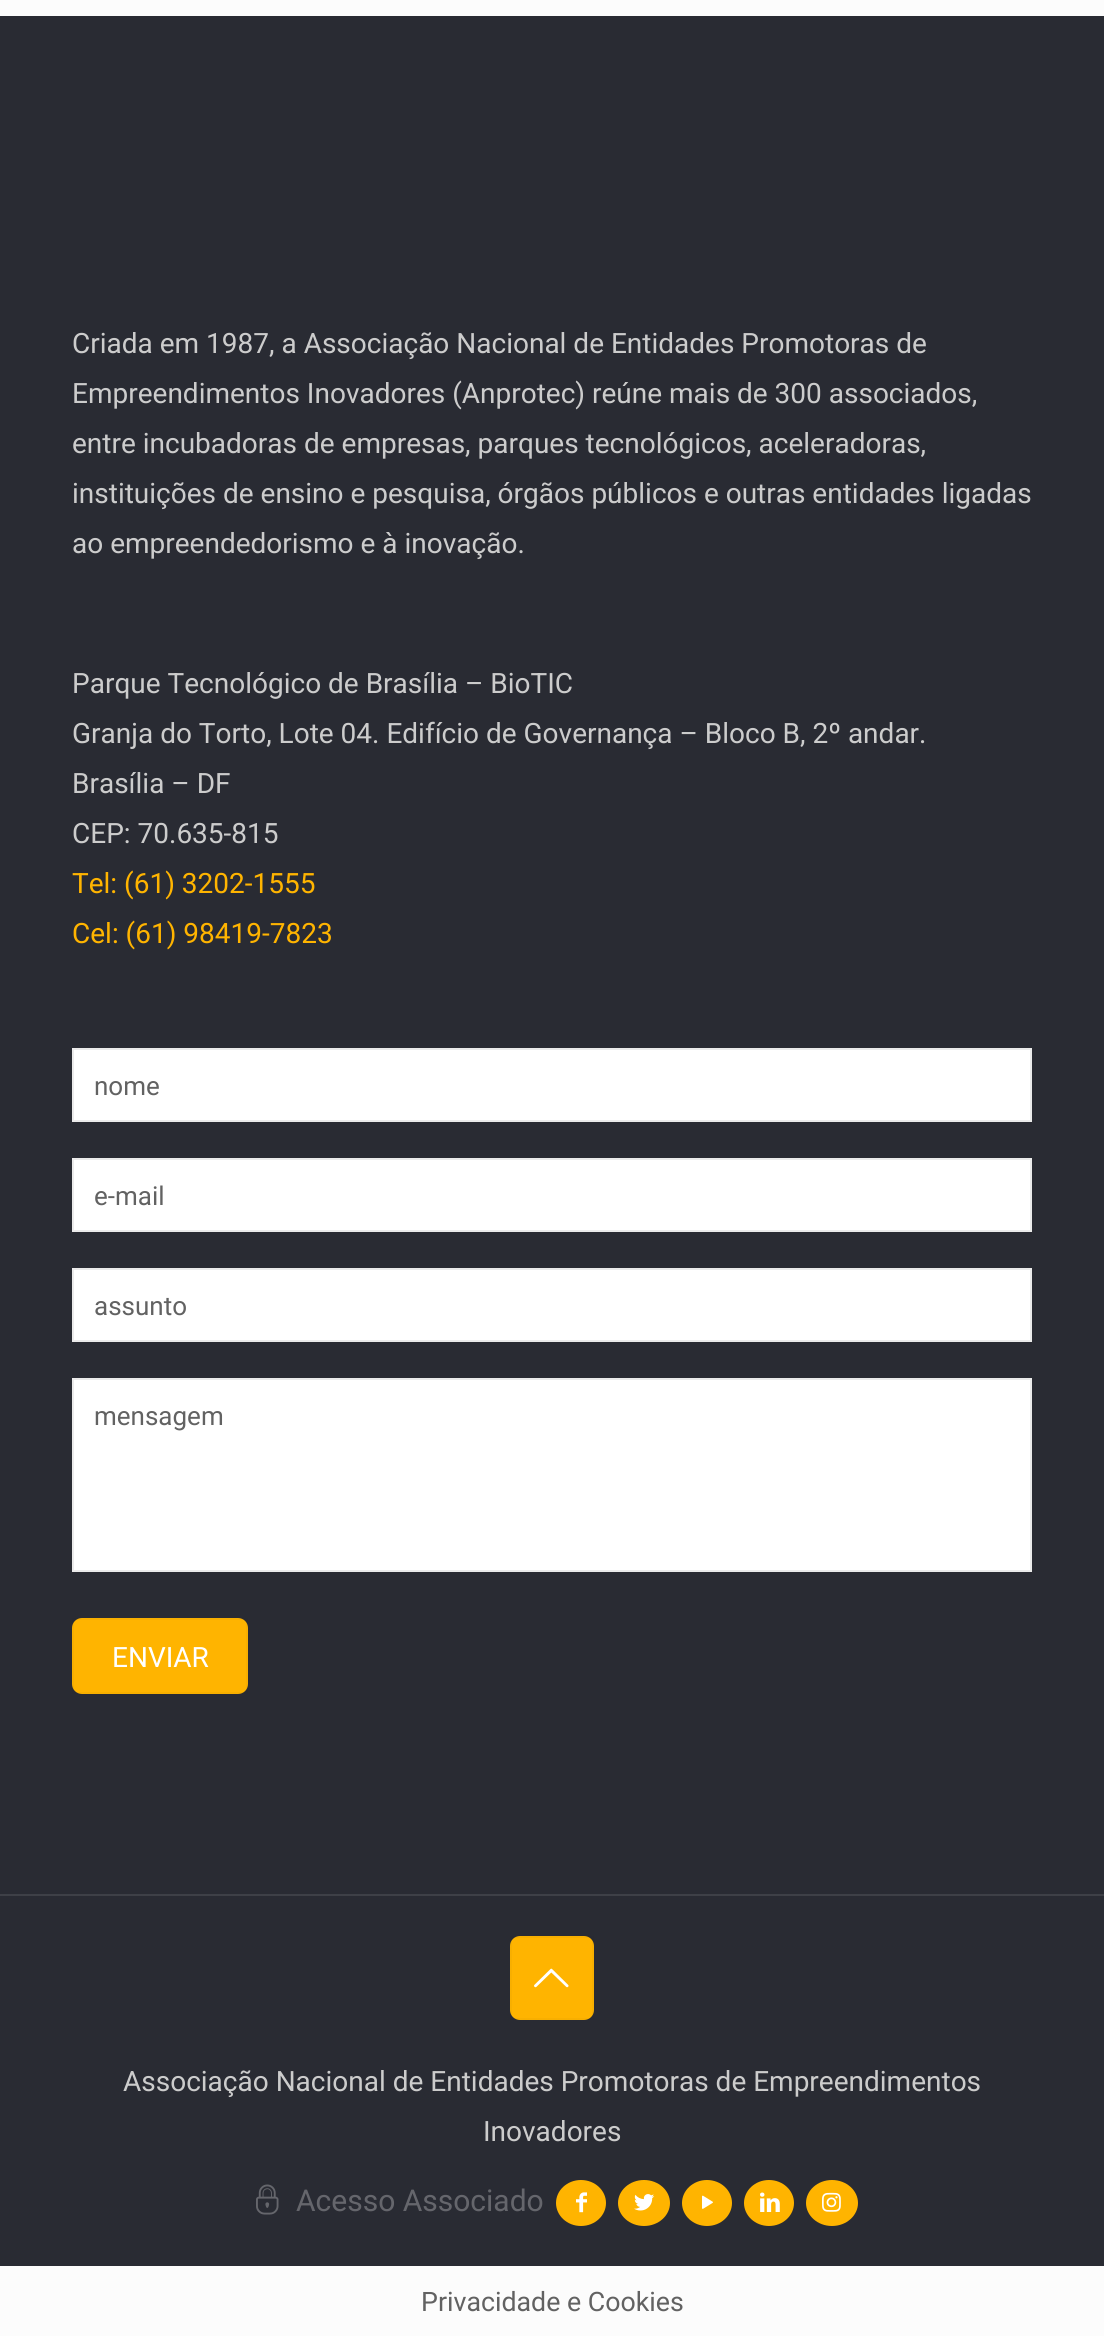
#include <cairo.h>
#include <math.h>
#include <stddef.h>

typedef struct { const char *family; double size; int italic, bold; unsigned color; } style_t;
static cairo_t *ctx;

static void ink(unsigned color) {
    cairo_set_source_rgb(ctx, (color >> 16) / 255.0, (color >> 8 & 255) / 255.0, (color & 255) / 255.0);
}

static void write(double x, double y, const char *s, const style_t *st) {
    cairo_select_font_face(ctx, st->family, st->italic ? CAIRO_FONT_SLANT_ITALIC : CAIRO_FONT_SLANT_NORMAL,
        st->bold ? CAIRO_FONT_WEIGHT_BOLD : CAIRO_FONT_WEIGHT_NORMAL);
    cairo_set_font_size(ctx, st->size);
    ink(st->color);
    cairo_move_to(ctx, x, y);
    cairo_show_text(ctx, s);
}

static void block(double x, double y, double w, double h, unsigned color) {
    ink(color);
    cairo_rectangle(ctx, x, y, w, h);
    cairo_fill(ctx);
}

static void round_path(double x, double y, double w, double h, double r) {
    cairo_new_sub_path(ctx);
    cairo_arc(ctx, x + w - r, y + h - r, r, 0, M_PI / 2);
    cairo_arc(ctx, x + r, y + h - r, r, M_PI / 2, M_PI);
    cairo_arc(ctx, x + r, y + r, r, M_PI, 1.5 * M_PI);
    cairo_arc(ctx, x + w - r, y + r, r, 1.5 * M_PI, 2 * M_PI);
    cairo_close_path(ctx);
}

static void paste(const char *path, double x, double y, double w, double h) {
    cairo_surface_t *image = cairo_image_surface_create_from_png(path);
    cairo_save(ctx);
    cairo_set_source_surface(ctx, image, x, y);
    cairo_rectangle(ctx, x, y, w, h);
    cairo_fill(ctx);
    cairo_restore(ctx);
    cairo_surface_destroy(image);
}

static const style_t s1 = {"Roboto", 28, 0, 0, 0xcccccc};
static const style_t s2 = {"Roboto", 28, 0, 0, 0xffb400};
static const style_t s3 = {"Roboto", 26, 0, 0, 0x626262};
static const style_t s4 = {"Roboto", 28, 0, 0, 0xffffff};
static const style_t s5 = {"Roboto", 30, 0, 0, 0x65666c};
static const style_t s6 = {"Roboto", 26.75, 0, 0, 0x626262};

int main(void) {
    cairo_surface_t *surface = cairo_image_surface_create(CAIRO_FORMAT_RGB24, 1104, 2336);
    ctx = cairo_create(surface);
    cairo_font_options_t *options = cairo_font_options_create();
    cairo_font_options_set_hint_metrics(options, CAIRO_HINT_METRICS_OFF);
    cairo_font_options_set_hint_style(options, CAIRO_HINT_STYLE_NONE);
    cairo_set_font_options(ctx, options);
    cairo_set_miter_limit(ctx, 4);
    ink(0xfcfcfc);
    cairo_paint(ctx);
    block(0, 16, 1104, 2250, 0x292b33);
    write(72, 353, "Criada em 1987, a Associação Nacional de Entidades Promotoras de", &s1);
    write(72, 403, "Empreendimentos Inovadores (Anprotec) reúne mais de 300 associados,", &s1);
    write(72, 453, "entre incubadoras de empresas, parques tecnológicos, aceleradoras,", &s1);
    write(72, 503, "instituições de ensino e pesquisa, órgãos públicos e outras entidades ligadas", &s1);
    write(72, 553, "ao empreendedorismo e à inovação.", &s1);
    write(72, 693, "Parque Tecnológico de Brasília – BioTIC", &s1);
    write(72, 743, "Granja do Torto, Lote 04. Edifício de Governança – Bloco B, 2º andar.", &s1);
    write(72, 793, "Brasília – DF", &s1);
    write(72, 843, "CEP: 70.635-815", &s1);
    write(72, 893, "Tel: (61) 3202-1555", &s2);
    write(72, 943, "Cel: (61) 98419-7823", &s2);
    ink(0xffffff);
    cairo_rectangle(ctx, 73, 1049, 958, 72);
    cairo_fill_preserve(ctx);
    ink(0xebebeb);
    cairo_stroke(ctx);
    write(94, 1095, "nome", &s3);
    ink(0xffffff);
    cairo_rectangle(ctx, 73, 1159, 958, 72);
    cairo_fill_preserve(ctx);
    ink(0xebebeb);
    cairo_stroke(ctx);
    write(94, 1205, "e-mail", &s3);
    ink(0xffffff);
    cairo_rectangle(ctx, 73, 1269, 958, 72);
    cairo_fill_preserve(ctx);
    ink(0xebebeb);
    cairo_stroke(ctx);
    write(94, 1315, "assunto", &s3);
    ink(0xffffff);
    cairo_rectangle(ctx, 73, 1379, 958, 192);
    cairo_fill_preserve(ctx);
    ink(0xebebeb);
    cairo_stroke(ctx);
    write(94, 1425, "mensagem", &s3);
    ink(0xffb400);
    round_path(72, 1618, 176, 76, 10);
    cairo_fill(ctx);
    cairo_rectangle(ctx, 73, 1619, 174, 74);
    cairo_set_source_rgba(ctx, 0, 0, 0, 0.03);
    cairo_stroke(ctx);
    write(112, 1667, "ENVIAR", &s4);
    block(0, 1894, 1104, 2, 0x3e4047);
    ink(0xffb400);
    round_path(510, 1936, 84, 84, 10);
    cairo_fill(ctx);
    cairo_rectangle(ctx, 511, 1937, 82, 82);
    cairo_set_source_rgba(ctx, 0, 0, 0, 0.03);
    cairo_stroke(ctx);
    paste("pic1.png", 534, 1968, 35, 20);
    write(123, 2091, "Associação Nacional de Entidades Promotoras de Empreendimentos", &s1);
    write(483, 2141, "Inovadores", &s1);
    paste("pic2.png", 256, 2184, 23, 31);
    write(296, 2211, "Acesso Associado", &s5);
    ink(0xffb400);
    cairo_new_path(ctx);
    cairo_move_to(ctx, 581, 2180);
    cairo_curve_to(ctx, 595, 2180, 606, 2190.5, 606, 2203);
    cairo_curve_to(ctx, 606, 2215.5, 595, 2226, 581, 2226);
    cairo_curve_to(ctx, 567, 2226, 556, 2215.5, 556, 2203);
    cairo_curve_to(ctx, 556, 2190.5, 567, 2180, 581, 2180);
    cairo_close_path(ctx);
    cairo_fill(ctx);
    paste("pic3.png", 576, 2192, 11, 21);
    cairo_new_path(ctx);
    cairo_move_to(ctx, 644, 2180);
    cairo_curve_to(ctx, 658.5, 2180, 670, 2190.5, 670, 2203);
    cairo_curve_to(ctx, 670, 2215.5, 658.5, 2226, 644, 2226);
    cairo_curve_to(ctx, 629.5, 2226, 618, 2215.5, 618, 2203);
    cairo_curve_to(ctx, 618, 2190.5, 629.5, 2180, 644, 2180);
    cairo_close_path(ctx);
    cairo_fill(ctx);
    paste("pic4.png", 634, 2194, 21, 17);
    cairo_new_path(ctx);
    cairo_move_to(ctx, 707, 2180);
    cairo_curve_to(ctx, 721, 2180, 732, 2190.5, 732, 2203);
    cairo_curve_to(ctx, 732, 2215.5, 721, 2226, 707, 2226);
    cairo_curve_to(ctx, 693, 2226, 682, 2215.5, 682, 2203);
    cairo_curve_to(ctx, 682, 2190.5, 693, 2180, 707, 2180);
    cairo_close_path(ctx);
    cairo_fill(ctx);
    paste("pic5.png", 702, 2195, 11, 14);
    cairo_new_path(ctx);
    cairo_move_to(ctx, 769, 2180);
    cairo_curve_to(ctx, 783, 2180, 794, 2190.5, 794, 2203);
    cairo_curve_to(ctx, 794, 2215.5, 783, 2226, 769, 2226);
    cairo_curve_to(ctx, 755, 2226, 744, 2215.5, 744, 2203);
    cairo_curve_to(ctx, 744, 2190.5, 755, 2180, 769, 2180);
    cairo_close_path(ctx);
    cairo_fill(ctx);
    paste("pic6.png", 760, 2192, 20, 20);
    cairo_new_path(ctx);
    cairo_move_to(ctx, 832, 2180);
    cairo_curve_to(ctx, 846.5, 2180, 858, 2190.5, 858, 2203);
    cairo_curve_to(ctx, 858, 2215.5, 846.5, 2226, 832, 2226);
    cairo_curve_to(ctx, 817.5, 2226, 806, 2215.5, 806, 2203);
    cairo_curve_to(ctx, 806, 2190.5, 817.5, 2180, 832, 2180);
    cairo_close_path(ctx);
    cairo_fill(ctx);
    paste("pic7.png", 822, 2192, 19, 20);
    write(421, 2311, "Privacidade e Cookies", &s6);
    cairo_surface_write_to_png(surface, "screenshot.png");
    cairo_font_options_destroy(options);
    cairo_destroy(ctx);
    cairo_surface_destroy(surface);
    return 0;
}
